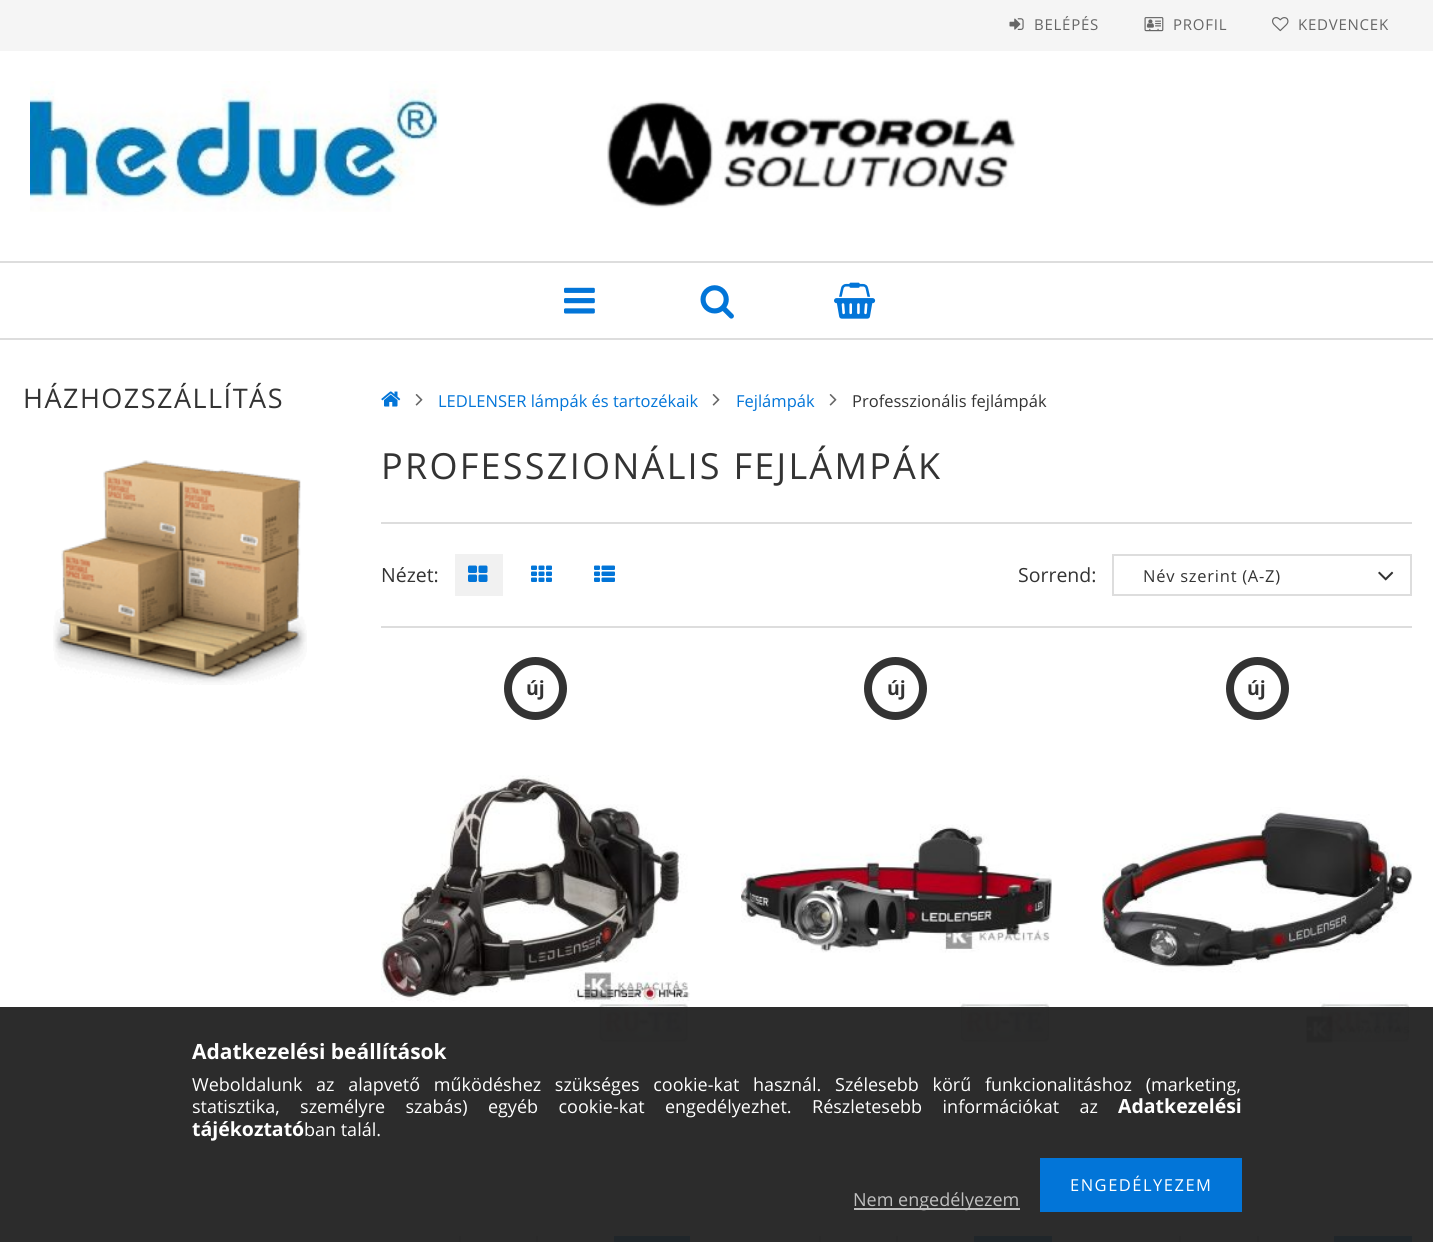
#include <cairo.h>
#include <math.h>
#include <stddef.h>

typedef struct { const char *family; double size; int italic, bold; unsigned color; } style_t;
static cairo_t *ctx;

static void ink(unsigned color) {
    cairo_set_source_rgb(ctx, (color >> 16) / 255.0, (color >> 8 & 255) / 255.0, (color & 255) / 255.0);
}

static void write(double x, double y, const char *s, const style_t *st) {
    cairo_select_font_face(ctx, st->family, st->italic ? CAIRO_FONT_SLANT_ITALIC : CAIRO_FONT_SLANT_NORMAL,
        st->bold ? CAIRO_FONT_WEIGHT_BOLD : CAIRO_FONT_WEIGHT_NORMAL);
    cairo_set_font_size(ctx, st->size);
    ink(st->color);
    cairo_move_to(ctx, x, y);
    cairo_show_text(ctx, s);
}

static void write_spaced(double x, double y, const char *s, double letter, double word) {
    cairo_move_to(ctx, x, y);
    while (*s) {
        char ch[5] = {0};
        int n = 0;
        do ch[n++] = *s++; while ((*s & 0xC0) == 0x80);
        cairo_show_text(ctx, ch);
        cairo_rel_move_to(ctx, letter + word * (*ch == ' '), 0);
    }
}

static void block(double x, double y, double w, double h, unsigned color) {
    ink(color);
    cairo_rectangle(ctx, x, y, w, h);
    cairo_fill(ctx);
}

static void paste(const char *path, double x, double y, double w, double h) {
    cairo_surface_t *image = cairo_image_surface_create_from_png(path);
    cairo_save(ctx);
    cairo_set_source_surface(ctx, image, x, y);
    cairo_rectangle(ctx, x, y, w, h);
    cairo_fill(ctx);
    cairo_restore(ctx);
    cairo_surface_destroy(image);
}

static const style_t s1 = {"Open Sans", 16.5, 0, 0, 0x0275d8};
static const style_t s2 = {"Open Sans", 16.5, 0, 0, 0x333333};
static const style_t s3 = {"Open Sans", 19.5, 0, 0, 0x333333};
static const style_t s4 = {"Open Sans", 19.5, 0, 1, 0x333333};
static const style_t s5 = {"Open Sans", 21, 0, 1, 0xffffff};
static const style_t s6 = {"Open Sans", 19.5, 0, 1, 0xffffff};
static const style_t s7 = {"Open Sans", 18, 0, 0, 0xffffff};
static const style_t s8 = {"Open Sans", 18, 0, 0, 0xc0c0c0};

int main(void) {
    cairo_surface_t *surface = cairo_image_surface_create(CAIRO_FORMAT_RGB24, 1433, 1242);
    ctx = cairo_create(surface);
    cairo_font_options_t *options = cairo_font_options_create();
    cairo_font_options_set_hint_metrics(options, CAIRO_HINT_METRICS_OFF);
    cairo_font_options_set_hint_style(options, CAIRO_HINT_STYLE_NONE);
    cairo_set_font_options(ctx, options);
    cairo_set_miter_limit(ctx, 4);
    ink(0xffffff);
    cairo_paint(ctx);
    block(0, 0, 1433, 51, 0xf5f5f5);
    paste("pic1.png", 1009, 18, 15, 12);
    cairo_select_font_face(ctx, "Open Sans", CAIRO_FONT_SLANT_NORMAL, CAIRO_FONT_WEIGHT_NORMAL);
    cairo_set_font_size(ctx, 15);
    ink(0x666666);
    write_spaced(1034, 30, "BELÉPÉS", 0.75, 0);
    paste("pic2.png", 1144, 17, 20, 15);
    write_spaced(1173, 30, "PROFIL", 0.75, 0);
    paste("pic3.png", 1272, 17, 17, 15);
    write_spaced(1298, 30, "KEDVENCEK", 0.75, 0);
    paste("pic4.png", 30, 81, 410, 131);
    paste("pic5.png", 607, 101, 409, 107);
    block(0, 261, 1433, 2, 0xdddddd);
    block(0, 338, 1433, 2, 0xdddddd);
    paste("pic6.png", 564, 287, 31, 27);
    paste("pic7.png", 700, 285, 34, 34);
    paste("pic8.png", 834, 282, 42, 37);
    cairo_set_font_size(ctx, 27);
    ink(0x333333);
    write_spaced(23, 408, "HÁZHOZSZÁLLÍTÁS", 1.5, 0);
    paste("pic9.png", 53, 460, 254, 225);
    paste("pic10.png", 381, 391, 20, 16);
    paste("pic11.png", 415, 394, 8, 12);
    write(438, 407, "LEDLENSER lámpák és tartozékaik", &s1);
    paste("pic11.png", 712, 394, 8, 12);
    write(736, 407, "Fejlámpák", &s1);
    paste("pic11.png", 829, 394, 8, 12);
    write(852, 407, "Professzionális fejlámpák", &s2);
    cairo_set_font_size(ctx, 36);
    write_spaced(381, 479, "PROFESSZIONÁLIS FEJLÁMPÁK", 2.25, 0);
    block(381, 522, 1031, 2, 0xdddddd);
    write(381, 582, "Nézet:", &s3);
    block(455, 554, 48, 42, 0xf1f1f1);
    paste("pic12.png", 468, 565, 20, 17);
    paste("pic13.png", 531, 565, 21, 17);
    paste("pic14.png", 594, 565, 21, 17);
    write(1018, 582, "Sorrend:", &s3);
    cairo_rectangle(ctx, 1113, 555, 298, 40);
    ink(0xdddddd);
    cairo_stroke(ctx);
    cairo_set_font_size(ctx, 16.5);
    ink(0x333333);
    write_spaced(1143, 582, "Név szerint (A-Z)", 0.75, 0);
    paste("pic15.png", 1378, 571, 16, 10);
    block(381, 626, 1031, 2, 0xdddddd);
    cairo_arc(ctx, 535.5, 688.5, 27.5, 0, 2 * M_PI);
    ink(0x333333);
    cairo_set_line_width(ctx, 8);
    cairo_stroke(ctx);
    write(526, 695, "új", &s4);
    paste("pic16.png", 381, 775, 309, 267);
    block(459, 1236, 2, 6, 0xdddddd);
    block(536, 1236, 2, 6, 0xdddddd);
    block(614, 1236, 76, 6, 0x0275d8);
    cairo_arc(ctx, 895.5, 688.5, 27.5, 0, 2 * M_PI);
    ink(0x333333);
    cairo_stroke(ctx);
    write(887, 695, "új", &s4);
    paste("pic17.png", 741, 824, 311, 218);
    block(819, 1236, 2, 6, 0xdddddd);
    block(896, 1236, 2, 6, 0xdddddd);
    block(974, 1236, 78, 6, 0x0275d8);
    cairo_arc(ctx, 1257.5, 688.5, 27.5, 0, 2 * M_PI);
    ink(0x333333);
    cairo_stroke(ctx);
    write(1247, 695, "új", &s4);
    paste("pic18.png", 1102, 807, 310, 237);
    block(1179, 1236, 2, 6, 0xdddddd);
    block(1257, 1236, 2, 6, 0xdddddd);
    block(1334, 1236, 78, 6, 0x0275d8);
    cairo_set_source_rgba(ctx, 0.133, 0.133, 0.133, 0.95);
    cairo_rectangle(ctx, 0, 1007, 1433, 235);
    cairo_fill(ctx);
    write(192, 1059, "Adatkezelési beállítások", &s5);
    cairo_select_font_face(ctx, "Open Sans", CAIRO_FONT_SLANT_NORMAL, CAIRO_FONT_WEIGHT_NORMAL);
    cairo_set_font_size(ctx, 18);
    write_spaced(192, 1091, "Weboldalunk az alapvető működéshez szükséges cookie-kat használ. Szélesebb körű funkcionalitáshoz (marketing,", 0, 9);
    write_spaced(192, 1113, "statisztika, személyre szabás) egyéb cookie-kat engedélyezhet. Részletesebb információkat az", 0, 15.75);
    write(1118, 1113, "Adatkezelési", &s6);
    write(192, 1136, "tájékoztató", &s6);
    write(304, 1136, "ban talál.", &s7);
    block(1040, 1158, 202, 54, 0x0275d8);
    cairo_set_font_size(ctx, 16.5);
    ink(0xffffff);
    write_spaced(1070, 1191, "ENGEDÉLYEZEM", 1.5, 0);
    block(854, 1208, 166, 2, 0xc0c0c0);
    write(853, 1206, "Nem engedélyezem", &s8);
    cairo_surface_write_to_png(surface, "screenshot.png");
    cairo_font_options_destroy(options);
    cairo_destroy(ctx);
    cairo_surface_destroy(surface);
    return 0;
}
